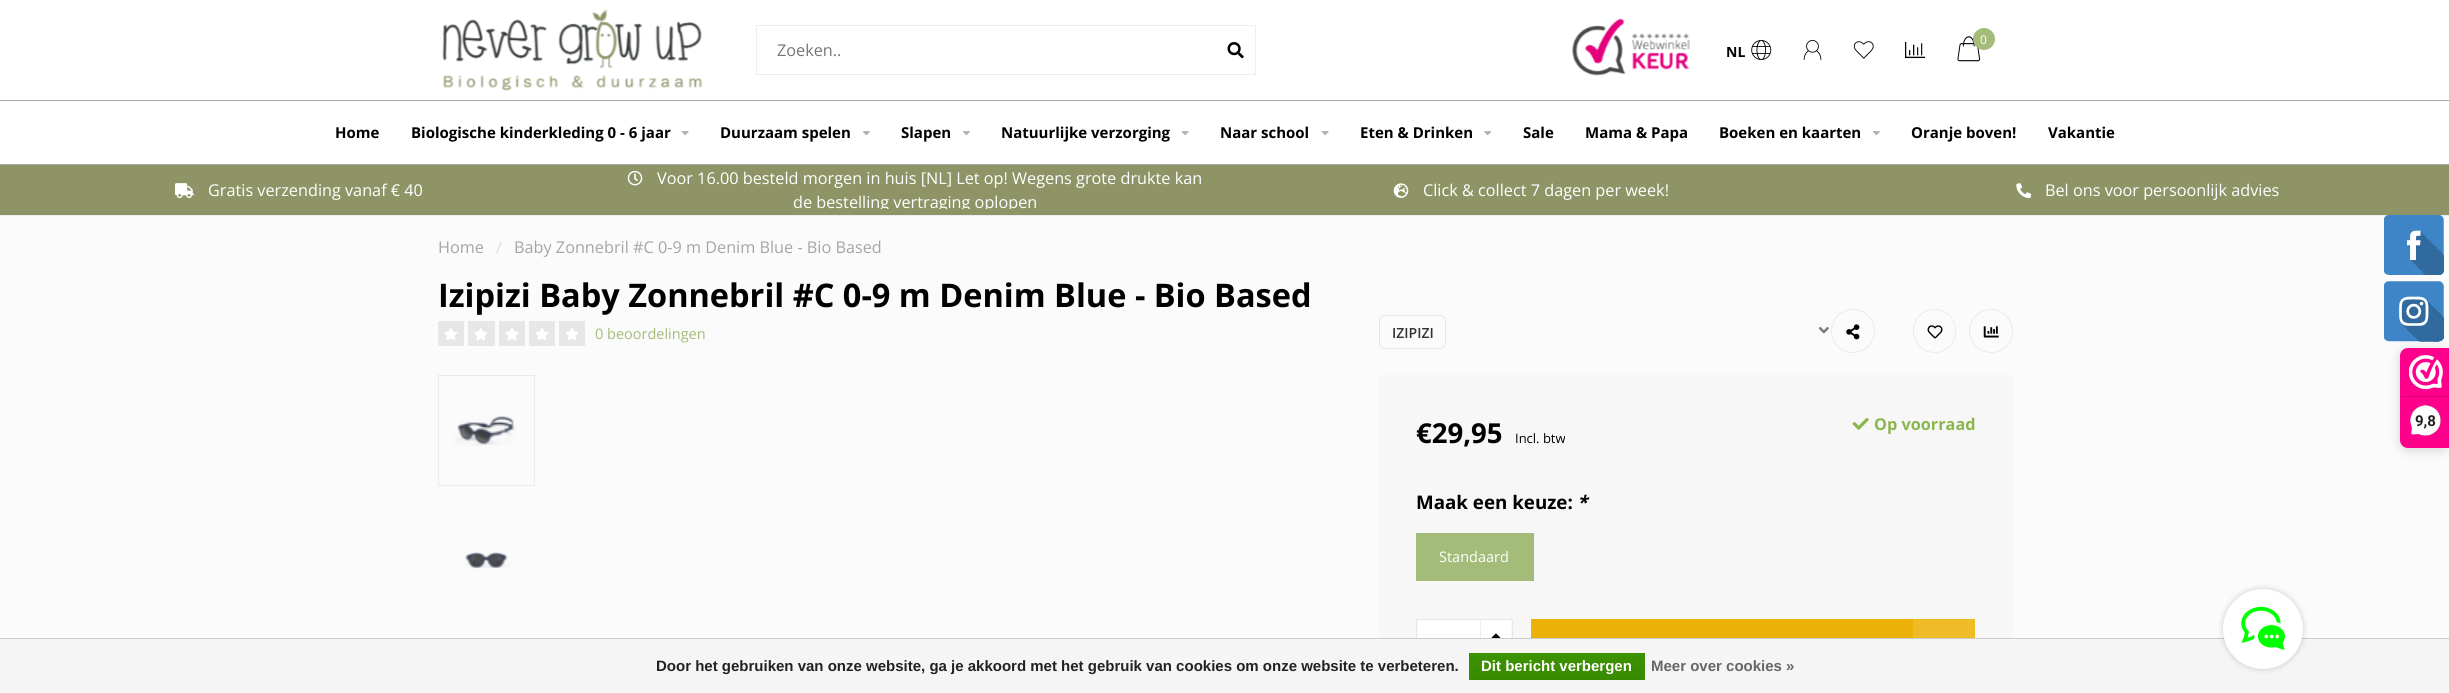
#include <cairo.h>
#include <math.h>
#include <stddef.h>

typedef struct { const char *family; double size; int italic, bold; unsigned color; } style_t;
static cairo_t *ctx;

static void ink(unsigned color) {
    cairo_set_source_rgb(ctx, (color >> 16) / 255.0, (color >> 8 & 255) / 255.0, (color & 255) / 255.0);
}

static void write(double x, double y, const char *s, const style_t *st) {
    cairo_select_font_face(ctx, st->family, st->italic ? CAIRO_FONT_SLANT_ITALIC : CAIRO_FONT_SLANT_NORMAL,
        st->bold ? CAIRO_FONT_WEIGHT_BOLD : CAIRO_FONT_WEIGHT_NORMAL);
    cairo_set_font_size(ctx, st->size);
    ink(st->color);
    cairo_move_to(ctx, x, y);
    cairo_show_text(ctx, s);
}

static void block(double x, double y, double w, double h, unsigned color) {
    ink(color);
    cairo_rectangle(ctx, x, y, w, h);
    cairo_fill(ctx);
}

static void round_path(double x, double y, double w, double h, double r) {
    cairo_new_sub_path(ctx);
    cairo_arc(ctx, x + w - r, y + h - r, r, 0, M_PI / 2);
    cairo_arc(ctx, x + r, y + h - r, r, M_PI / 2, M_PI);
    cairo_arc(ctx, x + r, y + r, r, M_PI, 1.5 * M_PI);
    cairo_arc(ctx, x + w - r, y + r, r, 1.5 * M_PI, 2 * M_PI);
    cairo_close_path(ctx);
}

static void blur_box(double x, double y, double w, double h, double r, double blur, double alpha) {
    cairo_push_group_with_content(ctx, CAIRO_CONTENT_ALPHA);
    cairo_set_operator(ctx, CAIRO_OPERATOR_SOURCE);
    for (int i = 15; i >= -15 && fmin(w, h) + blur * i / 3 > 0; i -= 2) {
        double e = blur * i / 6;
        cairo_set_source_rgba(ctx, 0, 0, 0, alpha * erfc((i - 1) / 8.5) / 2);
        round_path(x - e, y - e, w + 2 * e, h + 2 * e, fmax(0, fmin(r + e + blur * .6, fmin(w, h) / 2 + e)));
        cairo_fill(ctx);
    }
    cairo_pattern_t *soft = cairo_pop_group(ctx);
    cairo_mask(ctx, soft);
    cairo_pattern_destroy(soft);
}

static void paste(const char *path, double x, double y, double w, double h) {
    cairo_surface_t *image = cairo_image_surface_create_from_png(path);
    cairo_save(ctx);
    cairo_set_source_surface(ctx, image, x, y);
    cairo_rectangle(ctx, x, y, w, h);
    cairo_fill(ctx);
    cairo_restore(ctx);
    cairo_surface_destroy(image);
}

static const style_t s1 = {"Open Sans", 16.25, 0, 0, 0x757575};
static const style_t s2 = {"Open Sans", 12, 0, 0, 0xffffff};
static const style_t s3 = {"Open Sans", 14, 0, 1, 0x000000};
static const style_t s4 = {"Open Sans", 15, 0, 1, 0x000000};
static const style_t s5 = {"Open Sans", 16.25, 0, 0, 0xffffff};
static const style_t s6 = {"Open Sans", 16.25, 0, 0, 0xa5a5a5};
static const style_t s7 = {"Open Sans", 16.25, 0, 0, 0xdddddd};
static const style_t s8 = {"Open Sans", 32.5, 0, 1, 0x000000};
static const style_t s9 = {"Open Sans", 14.5, 0, 0, 0xa4bc79};
static const style_t s10 = {"Open Sans SemiBold", 14, 0, 0, 0x323232};
static const style_t s11 = {"Open Sans", 27.5, 0, 1, 0x000000};
static const style_t s12 = {"Open Sans", 13, 0, 0, 0x000000};
static const style_t s13 = {"Open Sans", 16.25, 0, 1, 0x8bb64c};
static const style_t s14 = {"Open Sans", 18.75, 0, 1, 0x000000};
static const style_t s15 = {"Open Sans", 18.75, 1, 1, 0x000000};
static const style_t s16 = {"Open Sans", 14.5, 0, 0, 0xffffff};
static const style_t s17 = {"Liberation Sans", 15, 0, 1, 0x222222};
static const style_t s18 = {"Liberation Sans", 15, 0, 1, 0xffffff};
static const style_t s19 = {"Liberation Sans", 15, 0, 1, 0x666666};
static const style_t s20 = {"Roboto", 15, 0, 1, 0x222222};

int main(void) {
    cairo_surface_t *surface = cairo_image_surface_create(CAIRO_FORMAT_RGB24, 2449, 693);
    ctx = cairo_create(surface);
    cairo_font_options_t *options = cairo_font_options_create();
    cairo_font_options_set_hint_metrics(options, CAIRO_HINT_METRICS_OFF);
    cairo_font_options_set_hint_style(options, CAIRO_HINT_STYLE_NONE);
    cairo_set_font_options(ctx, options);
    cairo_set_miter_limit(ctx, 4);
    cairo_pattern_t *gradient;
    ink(0xfbfbfb);
    cairo_paint(ctx);
    block(0, 0, 2449, 100, 0xffffff);
    paste("pic1.png", 442, 9, 261, 82);
    cairo_rectangle(ctx, 756.5, 25.5, 499, 49);
    ink(0xeeeeee);
    cairo_set_line_width(ctx, 1);
    cairo_stroke(ctx);
    write(777, 56, "Zoeken..", &s1);
    paste("pic2.png", 1227, 42, 17, 17);
    paste("pic3.png", 1572, 18, 118, 58);
    paste("pic4.png", 1957, 36, 24, 26);
    ink(0xa4bc79);
    cairo_arc(ctx, 1984, 39, 11, 0, 2 * M_PI);
    cairo_fill(ctx);
    write(1980, 44, "0", &s2);
    write(1726, 57, "NL", &s3);
    paste("pic5.png", 1751, 40, 21, 20);
    paste("pic6.png", 1803, 40, 19, 20);
    paste("pic7.png", 1853, 41, 21, 18);
    paste("pic8.png", 1905, 41, 20, 18);
    block(0, 101, 2449, 63, 0xffffff);
    block(0, 100, 2449, 1, 0xaaa7a7);
    block(0, 164, 2449, 1, 0xaaa7a7);
    write(335, 138, "Home", &s4);
    write(411, 138, "Biologische kinderkleding 0 - 6 jaar", &s4);
    paste("pic9.png", 681, 131, 8, 5);
    write(720, 138, "Duurzaam spelen", &s4);
    paste("pic10.png", 863, 131, 7, 5);
    write(901, 138, "Slapen", &s4);
    paste("pic10.png", 963, 131, 7, 5);
    write(1001, 138, "Natuurlijke verzorging", &s4);
    paste("pic9.png", 1181, 131, 8, 5);
    write(1220, 138, "Naar school", &s4);
    paste("pic9.png", 1321, 131, 8, 5);
    write(1360, 138, "Eten & Drinken", &s4);
    paste("pic11.png", 1484, 131, 8, 5);
    write(1523, 138, "Sale", &s4);
    write(1585, 138, "Mama & Papa", &s4);
    write(1719, 138, "Boeken en kaarten", &s4);
    paste("pic10.png", 1873, 131, 7, 5);
    write(1911, 138, "Oranje boven!", &s4);
    write(2048, 138, "Vakantie", &s4);
    block(0, 165, 2449, 50, 0x8e9466);
    block(0, 215, 2449, 1, 0xeeeeee);
    paste("pic12.png", 175, 183, 19, 16);
    write(208, 196, "Gratis verzending vanaf € 40", &s5);
    paste("pic13.png", 627, 171, 16, 15);
    write(657, 184, "Voor 16.00 besteld morgen in huis [NL] Let op! Wegens grote drukte kan", &s5);
    cairo_save(ctx);
    cairo_rectangle(ctx, 0, 171, 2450, 38);
    cairo_clip(ctx);
    write(793, 208, "de bestelling vertraging oplopen", &s5);
    cairo_restore(ctx);
    paste("pic14.png", 1393, 183, 16, 15);
    write(1423, 196, "Click & collect 7 dagen per week!", &s5);
    paste("pic15.png", 2016, 183, 16, 16);
    write(2045, 196, "Bel ons voor persoonlijk advies", &s5);
    write(438, 253, "Home", &s6);
    write(496, 253, "/", &s7);
    write(514, 253, "Baby Zonnebril #C 0-9 m Denim Blue - Bio Based", &s6);
    write(438, 307, "Izipizi Baby Zonnebril #C 0-9 m Denim Blue - Bio Based", &s8);
    block(438, 321, 26, 25, 0xe7e7e7);
    paste("pic16.png", 444, 328, 14, 13);
    block(468, 321, 27, 25, 0xe7e7e7);
    paste("pic16.png", 474, 328, 14, 13);
    block(499, 321, 26, 25, 0xe7e7e7);
    paste("pic17.png", 505, 328, 14, 13);
    block(529, 321, 26, 25, 0xe7e7e7);
    paste("pic17.png", 535, 328, 14, 13);
    block(559, 321, 26, 25, 0xe7e7e7);
    paste("pic17.png", 565, 328, 14, 13);
    write(595, 339, "0 beoordelingen", &s9);
    round_path(1379.5, 315.5, 66, 33, 5.5);
    ink(0xe6e6e6);
    cairo_stroke(ctx);
    write(1392, 338, "IZIPIZI", &s10);
    paste("pic18.png", 1818, 327, 11, 7);
    cairo_arc(ctx, 1853, 331, 21.5, 0, 2 * M_PI);
    ink(0xebebeb);
    cairo_stroke(ctx);
    paste("pic19.png", 1846, 324, 14, 16);
    round_path(1913.5, 309.5, 42, 43, 21);
    cairo_stroke(ctx);
    paste("pic20.png", 1927, 325, 16, 14);
    cairo_arc(ctx, 1991, 331, 21.5, 0, 2 * M_PI);
    cairo_stroke(ctx);
    paste("pic21.png", 1983, 326, 16, 12);
    cairo_rectangle(ctx, 438.5, 375.5, 96, 110);
    cairo_stroke(ctx);
    paste("pic22.png", 453, 416, 63, 30);
    paste("pic23.png", 464, 551, 47, 18);
    block(1379, 375, 634, 263, 0xf7f7f7);
    write(1416, 443, "€29,95", &s11);
    write(1515, 443, "Incl. btw", &s12);
    paste("pic24.png", 1852, 417, 17, 13);
    write(1874, 430, "Op voorraad", &s13);
    write(1416, 509, "Maak een keuze:", &s14);
    write(1577, 509, "*", &s15);
    block(1416, 533, 118, 48, 0xa4bc79);
    write(1439, 562, "Standaard", &s16);
    cairo_rectangle(ctx, 1416.5, 619.5, 96, 61);
    ink(0xe7e7e7);
    cairo_stroke(ctx);
    block(1418, 620, 93, 18, 0xffffff);
    cairo_set_source_rgba(ctx, 0.608, 0.608, 0.608, 0.17);
    cairo_new_path(ctx);
    cairo_move_to(ctx, 1480, 651);
    cairo_line_to(ctx, 1480, 620);
    cairo_line_to(ctx, 1481, 620);
    cairo_line_to(ctx, 1481, 650);
    cairo_close_path(ctx);
    cairo_fill(ctx);
    paste("pic25.png", 1491, 633, 10, 5);
    block(1531, 619, 382, 19, 0xedb20a);
    block(1913, 619, 62, 19, 0xefbb27);
    block(0, 639, 2449, 54, 0xf5f5f5);
    block(0, 638, 2449, 1, 0xcccccc);
    write(656, 671, "Door het gebruiken van onze website, ga je akkoord met het gebruik van cookies om onze website te verbeteren.", &s17);
    gradient = cairo_pattern_create_linear(1557, 653, 1557, 680);
    cairo_pattern_add_color_stop_rgba(gradient, 0, 0.235, 0.576, 0, 1);
    cairo_pattern_add_color_stop_rgba(gradient, 1, 0.224, 0.541, 0, 1);
    cairo_set_source(ctx, gradient);
    cairo_pattern_destroy(gradient);
    cairo_rectangle(ctx, 1469, 653, 176, 27);
    cairo_fill(ctx);
    write(1481, 671, "Dit bericht verbergen", &s18);
    write(1651, 671, "Meer over cookies »", &s19);
    paste("pic26.png", 2384, 215, 60, 127);
    ink(0x000000);
    blur_box(2400, 350, 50, 100, 8, 6, 0.15);
    ink(0xfe008c);
    cairo_new_path(ctx);
    cairo_move_to(ctx, 2408, 348);
    cairo_line_to(ctx, 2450, 348);
    cairo_line_to(ctx, 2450, 448);
    cairo_line_to(ctx, 2408, 448);
    cairo_curve_to(ctx, 2403.5, 448, 2400, 444.5, 2400, 440);
    cairo_line_to(ctx, 2400, 356);
    cairo_curve_to(ctx, 2400, 351.5, 2403.5, 348, 2408, 348);
    cairo_close_path(ctx);
    cairo_fill(ctx);
    paste("pic27.png", 2409, 355, 34, 35);
    block(2401, 396, 48, 1, 0xd80077);
    paste("pic28.png", 2410, 405, 31, 31);
    write(2415, 426, "9,8", &s20);
    ink(0x000000);
    blur_box(2223, 589, 80, 80, 40, 3, 0.2);
    ink(0xffffff);
    cairo_arc(ctx, 2263, 629, 40, 0, 2 * M_PI);
    cairo_fill(ctx);
    paste("pic29.png", 2241, 606, 44, 44);
    cairo_surface_write_to_png(surface, "screenshot.png");
    cairo_font_options_destroy(options);
    cairo_destroy(ctx);
    cairo_surface_destroy(surface);
    return 0;
}
